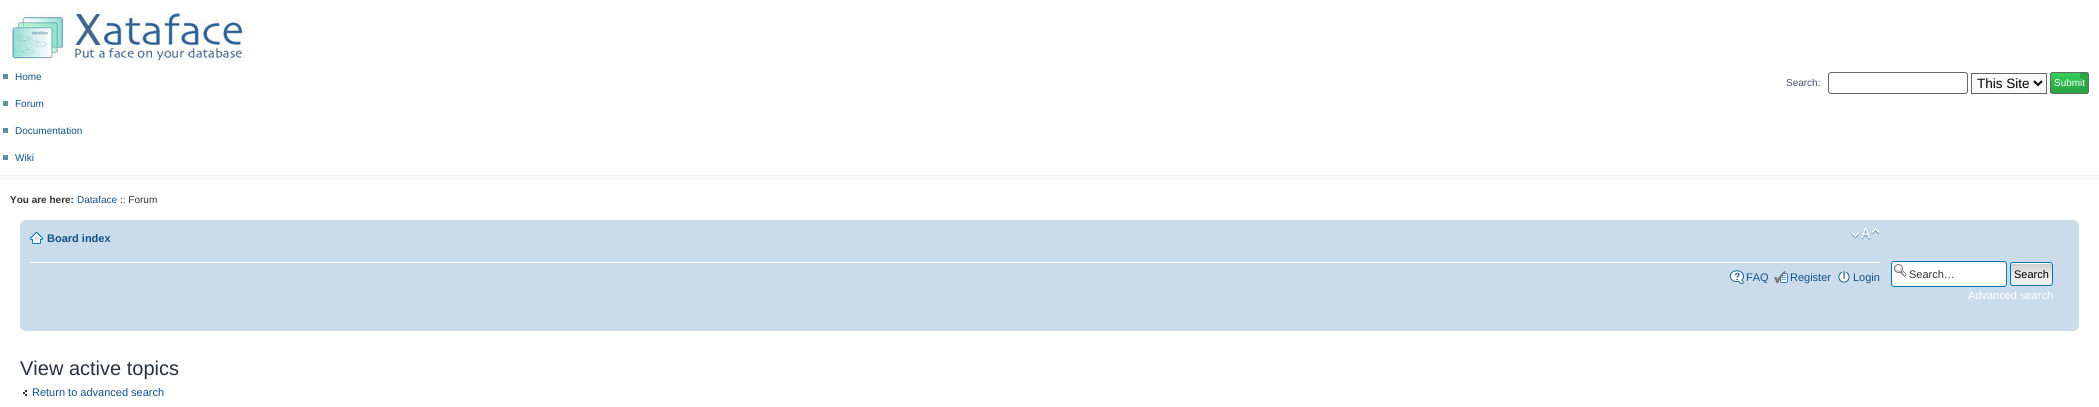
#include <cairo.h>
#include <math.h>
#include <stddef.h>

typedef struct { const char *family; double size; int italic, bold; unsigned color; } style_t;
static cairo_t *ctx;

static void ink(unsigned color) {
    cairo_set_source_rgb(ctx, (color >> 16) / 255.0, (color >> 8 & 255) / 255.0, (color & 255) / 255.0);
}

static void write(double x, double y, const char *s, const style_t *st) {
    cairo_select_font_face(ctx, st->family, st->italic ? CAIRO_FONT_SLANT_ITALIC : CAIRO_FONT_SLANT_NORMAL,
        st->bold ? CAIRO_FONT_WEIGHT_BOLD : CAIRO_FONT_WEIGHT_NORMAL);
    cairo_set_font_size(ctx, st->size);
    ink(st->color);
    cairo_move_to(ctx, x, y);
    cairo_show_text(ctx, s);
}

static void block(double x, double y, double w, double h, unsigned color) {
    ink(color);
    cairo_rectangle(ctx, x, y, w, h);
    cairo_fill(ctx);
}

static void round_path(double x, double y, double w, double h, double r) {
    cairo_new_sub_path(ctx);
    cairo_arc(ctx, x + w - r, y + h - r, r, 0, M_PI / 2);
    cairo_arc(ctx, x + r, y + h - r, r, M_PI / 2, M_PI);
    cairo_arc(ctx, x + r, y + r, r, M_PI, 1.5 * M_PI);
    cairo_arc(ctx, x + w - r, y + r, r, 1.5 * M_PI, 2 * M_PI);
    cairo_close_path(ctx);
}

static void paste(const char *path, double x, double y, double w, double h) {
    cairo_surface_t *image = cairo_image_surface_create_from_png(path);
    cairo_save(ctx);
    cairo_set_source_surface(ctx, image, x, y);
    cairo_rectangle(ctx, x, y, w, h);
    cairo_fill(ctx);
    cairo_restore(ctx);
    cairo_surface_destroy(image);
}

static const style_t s1 = {"Liberation Sans", 10, 0, 0, 0x105289};
static const style_t s2 = {"Liberation Sans", 10, 0, 0, 0x425067};
static const style_t s3 = {"Liberation Sans", 13.5, 0, 0, 0x000000};
static const style_t s4 = {"Liberation Sans", 10, 0, 0, 0xffffff};
static const style_t s5 = {"Liberation Sans", 10, 0, 1, 0x333333};
static const style_t s6 = {"Liberation Sans", 10, 0, 0, 0x333333};
static const style_t s7 = {"Liberation Sans", 11, 0, 1, 0x105289};
static const style_t s8 = {"Liberation Sans", 11, 0, 0, 0x105289};
static const style_t s9 = {"Liberation Sans", 11, 0, 0, 0x333333};
static const style_t s10 = {"Liberation Sans", 11, 0, 0, 0x000000};
static const style_t s11 = {"Liberation Sans", 11, 0, 0, 0xffffff};
static const style_t s12 = {"Liberation Sans", 20, 0, 0, 0x28313f};

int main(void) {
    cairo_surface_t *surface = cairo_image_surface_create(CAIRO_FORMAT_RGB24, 2099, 407);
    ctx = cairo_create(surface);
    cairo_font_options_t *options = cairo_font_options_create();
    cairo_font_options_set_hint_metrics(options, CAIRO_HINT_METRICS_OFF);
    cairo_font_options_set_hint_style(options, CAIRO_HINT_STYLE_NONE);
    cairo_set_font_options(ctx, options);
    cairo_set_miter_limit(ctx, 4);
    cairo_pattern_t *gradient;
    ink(0xffffff);
    cairo_paint(ctx);
    paste("pic1.png", 8, 12, 240, 50);
    block(3, 74, 5, 5, 0x638c9c);
    write(15, 80, "Home", &s1);
    block(3, 101, 5, 5, 0x638c9c);
    write(15, 107, "Forum", &s1);
    block(3, 128, 5, 5, 0x638c9c);
    write(15, 134, "Documentation", &s1);
    block(3, 155, 5, 5, 0x638c9c);
    write(15, 161, "Wiki", &s1);
    write(1786, 86, "Search:", &s2);
    round_path(1828.5, 72.5, 139, 21, 2.5);
    ink(0x666666);
    cairo_set_line_width(ctx, 1);
    cairo_stroke(ctx);
    ink(0xfafafa);
    cairo_rectangle(ctx, 1971.5, 73.5, 75, 20);
    cairo_fill_preserve(ctx);
    ink(0x666666);
    cairo_stroke(ctx);
    cairo_new_path(ctx);
    cairo_move_to(ctx, 2034, 81);
    cairo_line_to(ctx, 2038, 85);
    cairo_line_to(ctx, 2042, 81);
    ink(0x000000);
    cairo_set_line_width(ctx, 2);
    cairo_stroke(ctx);
    write(1977, 88, "This Site", &s3);
    ink(0x28a745);
    round_path(2050, 72, 39, 22, 3);
    cairo_fill(ctx);
    cairo_save(ctx);
    round_path(2050, 72, 39, 22, 3);
    cairo_clip(ctx);
    gradient = cairo_pattern_create_linear(2062, 73, 2062, 93);
    cairo_pattern_add_color_stop_rgba(gradient, 0, 0.204, 0.816, 0.345, 1);
    cairo_pattern_add_color_stop_rgba(gradient, 0.9, 0.157, 0.655, 0.271, 1);
    cairo_set_source(ctx, gradient);
    cairo_pattern_destroy(gradient);
    cairo_rectangle(ctx, 2050, 73, 30, 20);
    cairo_fill(ctx);
    cairo_restore(ctx);
    round_path(2050.5, 72.5, 38, 21, 2.5);
    ink(0x666666);
    cairo_set_line_width(ctx, 1);
    cairo_stroke(ctx);
    write(2054, 86, "Submit", &s4);
    block(0, 176, 2099, 4, 0xf6f8fa);
    block(0, 175, 2099, 1, 0xeceff1);
    write(10, 203, "You are here:", &s5);
    write(77, 203, "Dataface", &s1);
    write(120, 203, ":: Forum", &s6);
    block(20, 220, 2059, 111, 0xcadceb);
    paste("pic2.png", 20, 220, 5, 5);
    paste("pic3.png", 2074, 220, 5, 5);
    block(30, 262, 1850, 1, 0xffffff);
    paste("pic4.png", 30, 232, 13, 12);
    write(47, 242, "Board index", &s7);
    paste("pic5.png", 1851, 228, 29, 12);
    paste("pic6.png", 1729, 270, 16, 14);
    write(1746, 281, "FAQ", &s8);
    paste("pic7.png", 1774, 271, 14, 13);
    write(1790, 281, "Register", &s8);
    paste("pic8.png", 1838, 271, 12, 12);
    write(1853, 281, "Login", &s8);
    paste("pic9.png", 20, 326, 5, 5);
    paste("pic10.png", 2074, 326, 5, 5);
    ink(0xffffff);
    round_path(1891, 261, 116, 26, 3);
    cairo_fill(ctx);
    paste("pic11.png", 1894, 264, 13, 13);
    round_path(1891.5, 261.5, 115, 25, 2.5);
    ink(0x0075b0);
    cairo_stroke(ctx);
    write(1909, 278, "Search…", &s9);
    paste("pic12.png", 2010, 263, 43, 23);
    round_path(2010.5, 262.5, 42, 23, 2.5);
    ink(0x0075b0);
    cairo_stroke(ctx);
    write(2014, 278, "Search", &s10);
    write(1968, 299, "Advanced search", &s11);
    write(20, 375, "View active topics", &s12);
    paste("pic13.png", 23, 390, 4, 6);
    write(32, 396, "Return to advanced search", &s8);
    cairo_surface_write_to_png(surface, "screenshot.png");
    cairo_font_options_destroy(options);
    cairo_destroy(ctx);
    cairo_surface_destroy(surface);
    return 0;
}
